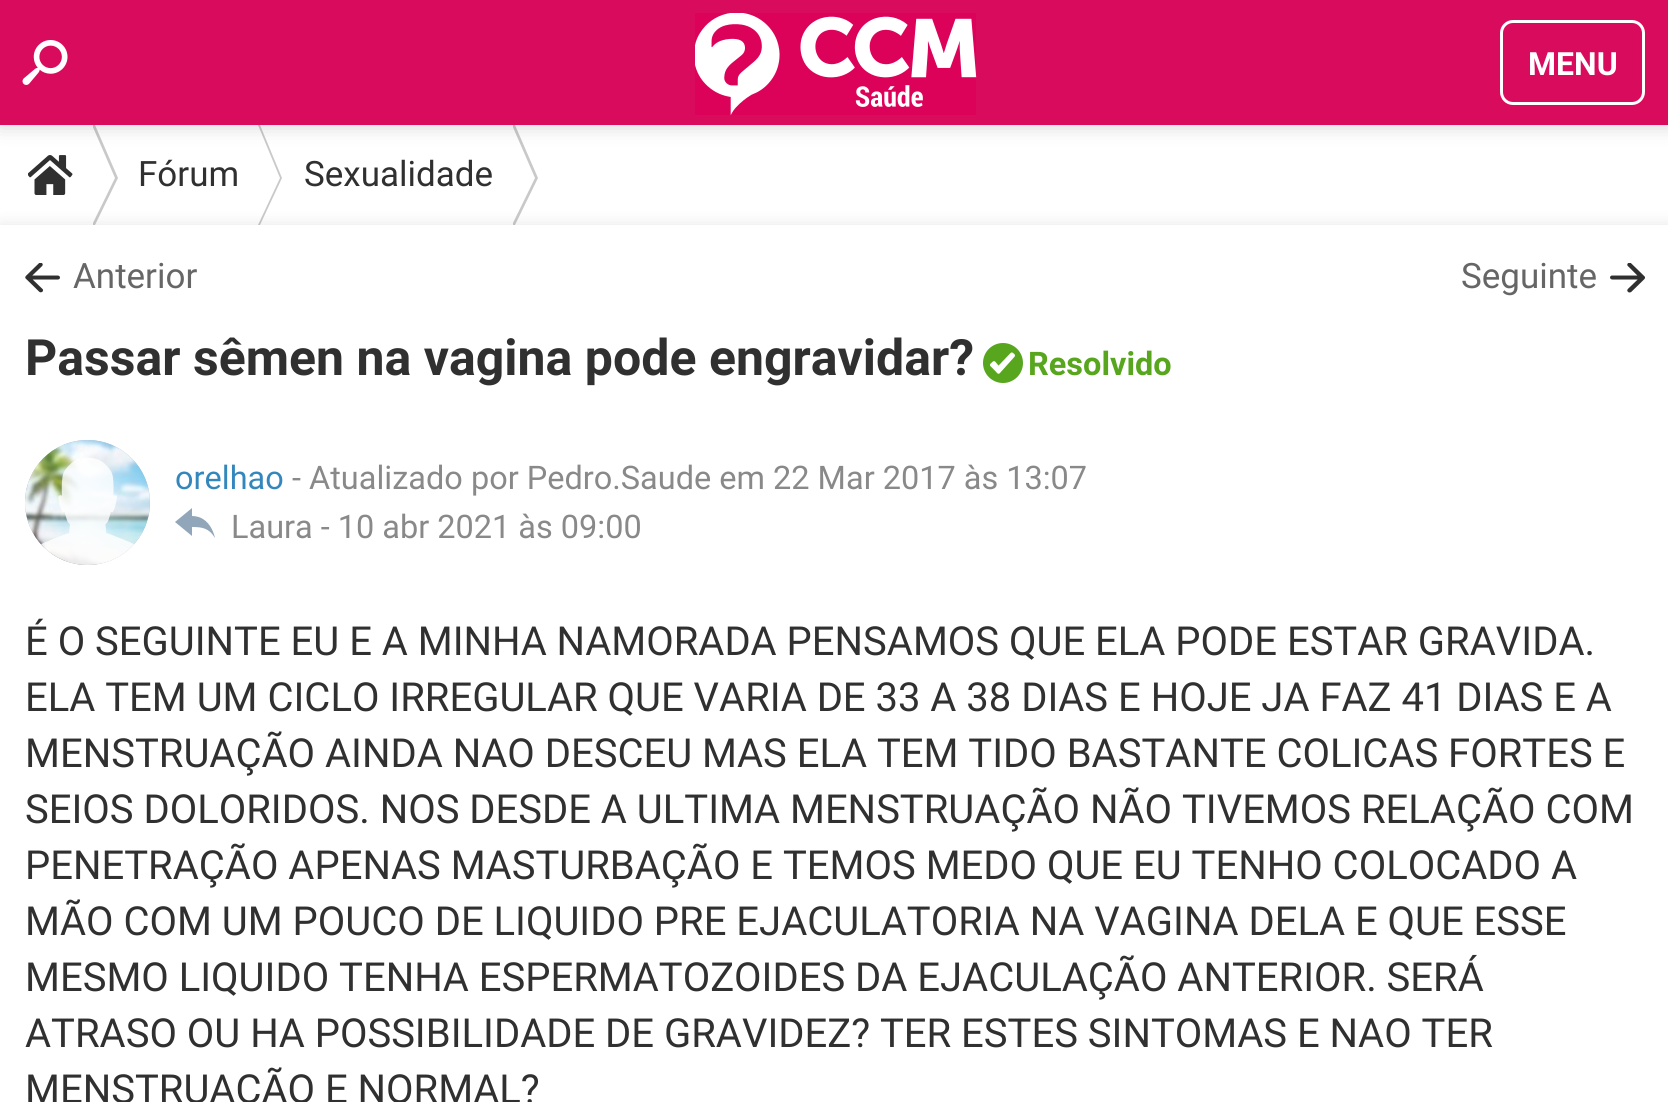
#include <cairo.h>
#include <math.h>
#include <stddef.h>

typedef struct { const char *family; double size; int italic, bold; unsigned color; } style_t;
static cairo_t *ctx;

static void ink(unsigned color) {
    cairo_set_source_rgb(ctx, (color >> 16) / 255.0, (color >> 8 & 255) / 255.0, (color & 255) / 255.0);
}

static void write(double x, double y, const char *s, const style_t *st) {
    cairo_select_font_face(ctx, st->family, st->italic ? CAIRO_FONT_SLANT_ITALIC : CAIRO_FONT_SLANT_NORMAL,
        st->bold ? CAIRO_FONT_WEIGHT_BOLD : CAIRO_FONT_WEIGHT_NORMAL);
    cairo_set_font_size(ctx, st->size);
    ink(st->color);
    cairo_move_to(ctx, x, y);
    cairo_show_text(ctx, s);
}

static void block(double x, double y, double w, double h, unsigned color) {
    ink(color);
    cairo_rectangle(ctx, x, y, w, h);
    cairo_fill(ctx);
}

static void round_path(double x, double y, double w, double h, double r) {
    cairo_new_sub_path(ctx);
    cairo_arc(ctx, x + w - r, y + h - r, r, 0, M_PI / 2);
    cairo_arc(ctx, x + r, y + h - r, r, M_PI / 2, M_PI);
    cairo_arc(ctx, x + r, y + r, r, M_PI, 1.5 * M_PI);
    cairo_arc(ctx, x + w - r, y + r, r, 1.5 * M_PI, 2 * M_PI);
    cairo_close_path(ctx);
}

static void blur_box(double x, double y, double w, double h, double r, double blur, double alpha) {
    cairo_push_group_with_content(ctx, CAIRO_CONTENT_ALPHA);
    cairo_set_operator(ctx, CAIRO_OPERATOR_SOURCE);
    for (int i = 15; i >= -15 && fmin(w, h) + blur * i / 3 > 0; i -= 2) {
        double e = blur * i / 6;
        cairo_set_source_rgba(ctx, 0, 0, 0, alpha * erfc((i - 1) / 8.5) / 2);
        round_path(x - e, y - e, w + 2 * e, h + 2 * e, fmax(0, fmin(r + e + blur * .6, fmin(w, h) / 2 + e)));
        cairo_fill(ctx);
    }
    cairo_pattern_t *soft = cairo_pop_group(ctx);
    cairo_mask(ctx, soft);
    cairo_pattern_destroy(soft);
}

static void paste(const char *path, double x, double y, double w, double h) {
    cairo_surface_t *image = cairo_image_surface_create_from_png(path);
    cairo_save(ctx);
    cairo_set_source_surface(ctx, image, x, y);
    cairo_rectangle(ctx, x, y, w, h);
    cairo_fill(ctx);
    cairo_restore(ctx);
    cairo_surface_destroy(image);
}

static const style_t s1 = {"Roboto", 32, 0, 1, 0xffffff};
static const style_t s2 = {"Roboto", 35, 0, 0, 0x303030};
static const style_t s3 = {"Roboto", 35, 0, 0, 0x666666};
static const style_t s4 = {"Roboto", 50, 0, 1, 0x303030};
static const style_t s5 = {"Roboto", 32.5, 0, 1, 0x58a61e};
static const style_t s6 = {"Roboto", 32.5, 0, 0, 0x3487bc};
static const style_t s7 = {"Roboto", 32.5, 0, 0, 0x898989};
static const style_t s8 = {"Roboto", 40, 0, 0, 0x303030};

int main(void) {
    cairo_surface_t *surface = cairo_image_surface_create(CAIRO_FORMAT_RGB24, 1668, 1102);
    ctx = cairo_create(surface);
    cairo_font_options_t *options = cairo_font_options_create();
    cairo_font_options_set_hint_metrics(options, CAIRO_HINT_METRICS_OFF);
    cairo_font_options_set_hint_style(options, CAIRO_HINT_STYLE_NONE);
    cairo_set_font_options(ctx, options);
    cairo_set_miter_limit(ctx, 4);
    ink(0xffffff);
    cairo_paint(ctx);
    paste("pic3.png", 28, 155, 45, 40);
    cairo_save(ctx);
    cairo_rectangle(ctx, 93, 125, 25, 100);
    cairo_clip(ctx);
    ink(0xc9c9c9);
    cairo_set_fill_rule(ctx, CAIRO_FILL_RULE_EVEN_ODD);
    cairo_new_path(ctx);
    cairo_move_to(ctx, 92, 125);
    cairo_line_to(ctx, 95, 125);
    cairo_line_to(ctx, 118, 178);
    cairo_line_to(ctx, 95, 225);
    cairo_line_to(ctx, 92, 225);
    cairo_line_to(ctx, 115, 178);
    cairo_close_path(ctx);
    cairo_fill(ctx);
    cairo_restore(ctx);
    ink(0xc9c9c9);
    cairo_set_fill_rule(ctx, CAIRO_FILL_RULE_EVEN_ODD);
    cairo_new_path(ctx);
    cairo_move_to(ctx, 258, 125);
    cairo_line_to(ctx, 260, 125);
    cairo_line_to(ctx, 282, 178);
    cairo_line_to(ctx, 260, 225);
    cairo_line_to(ctx, 258, 225);
    cairo_line_to(ctx, 280, 178);
    cairo_close_path(ctx);
    cairo_fill(ctx);
    cairo_save(ctx);
    cairo_set_fill_rule(ctx, CAIRO_FILL_RULE_WINDING);
    cairo_rectangle(ctx, 513, 125, 25, 100);
    cairo_clip(ctx);
    cairo_set_fill_rule(ctx, CAIRO_FILL_RULE_EVEN_ODD);
    cairo_new_path(ctx);
    cairo_move_to(ctx, 512, 125);
    cairo_line_to(ctx, 515, 125);
    cairo_line_to(ctx, 538, 178);
    cairo_line_to(ctx, 515, 225);
    cairo_line_to(ctx, 512, 225);
    cairo_line_to(ctx, 535, 178);
    cairo_close_path(ctx);
    cairo_fill(ctx);
    cairo_restore(ctx);
    ink(0x000000);
    blur_box(0, 0, 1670, 125, 0, 10, 0.2);
    block(0, 0, 1668, 125, 0xd90b5d);
    paste("pic1.png", 22, 40, 46, 45);
    paste("pic2.png", 695, 13, 282, 102);
    round_path(1501.5, 21.5, 142, 82, 11.5);
    ink(0xffffff);
    cairo_set_line_width(ctx, 3);
    cairo_stroke(ctx);
    write(1528, 75, "MENU", &s1);
    write(138, 186, "Fórum", &s2);
    write(304, 186, "Sexualidade", &s2);
    ink(0x000000);
    blur_box(0, 225, 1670, 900, 0, 7.5, 0.1);
    block(0, 225, 1668, 877, 0xffffff);
    paste("pic4.png", 25, 263, 35, 30);
    write(73, 288, "Anterior", &s3);
    write(1461, 288, "Seguinte", &s3);
    paste("pic5.png", 1610, 263, 35, 30);
    write(25, 375, "Passar sêmen na vagina pode engravidar?", &s4);
    ink(0x58a61e);
    cairo_new_path(ctx);
    cairo_arc(ctx, 1003, 363, 20, 0, 2 * M_PI);
    cairo_fill(ctx);
    paste("pic6.png", 990, 352, 25, 22);
    write(1028, 375, "Resolvido", &s5);
    ink(0xb0becb);
    cairo_new_path(ctx);
    cairo_arc(ctx, 87.5, 502.5, 62.5, 0, 2 * M_PI);
    cairo_fill(ctx);
    paste("pic7.png", 25, 440, 125, 125);
    paste("pic8.png", 41, 458, 93, 107);
    write(175, 489, "orelhao", &s6);
    write(292, 489, "- Atualizado por Pedro.Saude em 22 Mar 2017 às 13:07", &s7);
    ink(0x91a6b9);
    cairo_set_fill_rule(ctx, CAIRO_FILL_RULE_WINDING);
    cairo_new_path(ctx);
    cairo_move_to(ctx, 192, 527);
    cairo_line_to(ctx, 192, 536);
    cairo_line_to(ctx, 175, 522);
    cairo_line_to(ctx, 192, 508);
    cairo_line_to(ctx, 192, 516);
    cairo_curve_to(ctx, 211, 516, 215, 538, 215, 538);
    cairo_curve_to(ctx, 209, 528, 202, 527, 192, 527);
    cairo_close_path(ctx);
    cairo_fill(ctx);
    write(231, 538, "Laura - 10 abr 2021 às 09:00", &s7);
    write(25, 655, "É O SEGUINTE EU E A MINHA NAMORADA PENSAMOS QUE ELA PODE ESTAR GRAVIDA.", &s8);
    write(25, 711, "ELA TEM UM CICLO IRREGULAR QUE VARIA DE 33 A 38 DIAS E HOJE JA FAZ 41 DIAS E A", &s8);
    write(25, 767, "MENSTRUAÇÃO AINDA NAO DESCEU MAS ELA TEM TIDO BASTANTE COLICAS FORTES E", &s8);
    write(25, 823, "SEIOS DOLORIDOS. NOS DESDE A ULTIMA MENSTRUAÇÃO NÃO TIVEMOS RELAÇÃO COM", &s8);
    write(25, 879, "PENETRAÇÃO APENAS MASTURBAÇÃO E TEMOS MEDO QUE EU TENHO COLOCADO A", &s8);
    write(25, 935, "MÃO COM UM POUCO DE LIQUIDO PRE EJACULATORIA NA VAGINA DELA E QUE ESSE", &s8);
    write(25, 991, "MESMO LIQUIDO TENHA ESPERMATOZOIDES DA EJACULAÇÃO ANTERIOR. SERÁ", &s8);
    write(25, 1047, "ATRASO OU HA POSSIBILIDADE DE GRAVIDEZ? TER ESTES SINTOMAS E NAO TER", &s8);
    write(25, 1103, "MENSTRUAÇÃO E NORMAL?", &s8);
    cairo_surface_write_to_png(surface, "screenshot.png");
    cairo_font_options_destroy(options);
    cairo_destroy(ctx);
    cairo_surface_destroy(surface);
    return 0;
}
